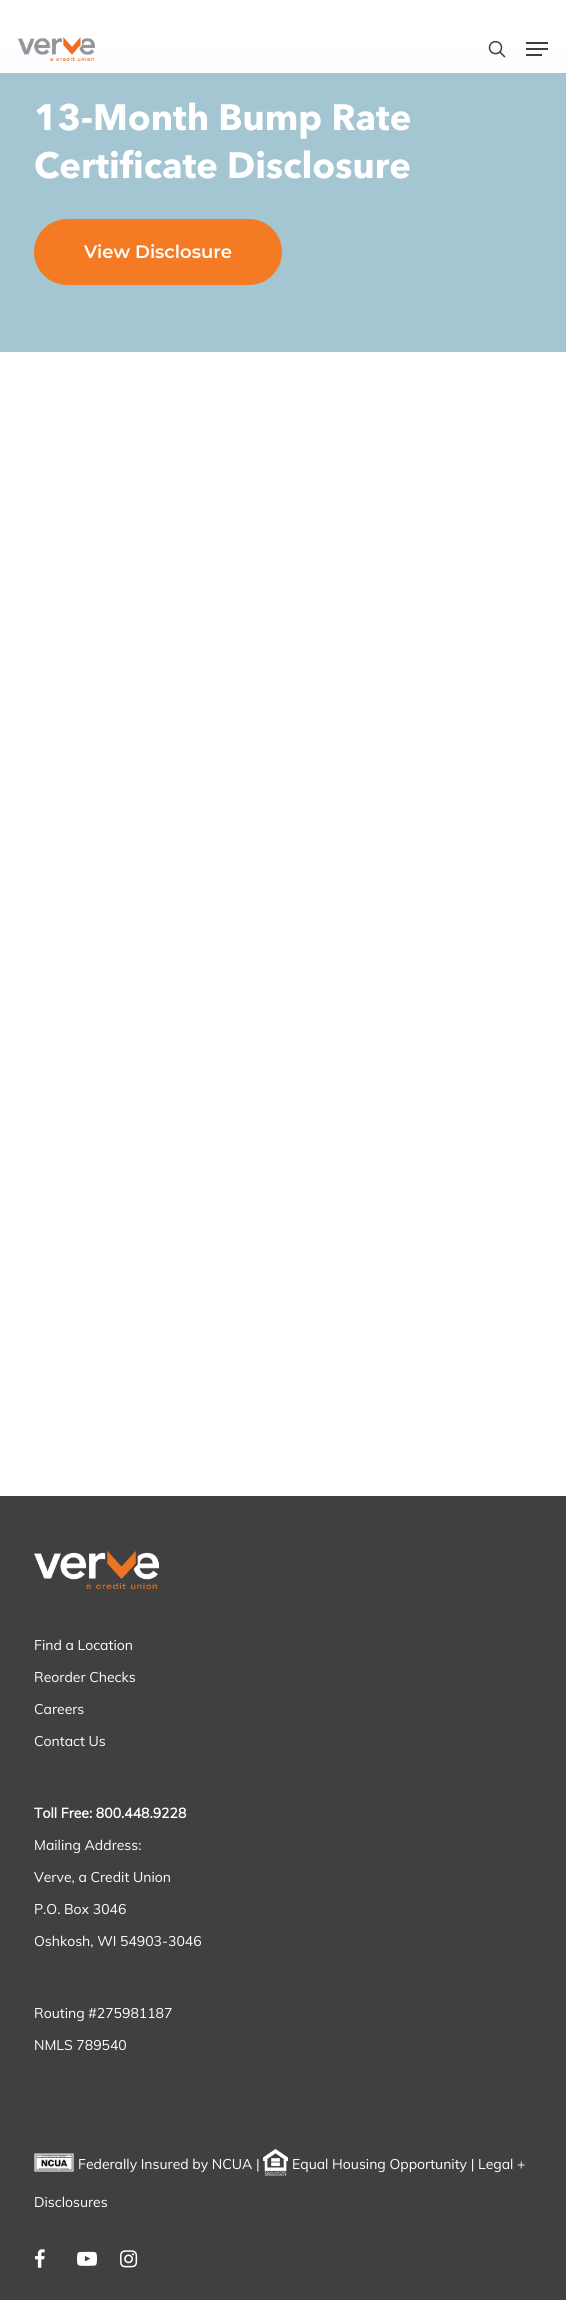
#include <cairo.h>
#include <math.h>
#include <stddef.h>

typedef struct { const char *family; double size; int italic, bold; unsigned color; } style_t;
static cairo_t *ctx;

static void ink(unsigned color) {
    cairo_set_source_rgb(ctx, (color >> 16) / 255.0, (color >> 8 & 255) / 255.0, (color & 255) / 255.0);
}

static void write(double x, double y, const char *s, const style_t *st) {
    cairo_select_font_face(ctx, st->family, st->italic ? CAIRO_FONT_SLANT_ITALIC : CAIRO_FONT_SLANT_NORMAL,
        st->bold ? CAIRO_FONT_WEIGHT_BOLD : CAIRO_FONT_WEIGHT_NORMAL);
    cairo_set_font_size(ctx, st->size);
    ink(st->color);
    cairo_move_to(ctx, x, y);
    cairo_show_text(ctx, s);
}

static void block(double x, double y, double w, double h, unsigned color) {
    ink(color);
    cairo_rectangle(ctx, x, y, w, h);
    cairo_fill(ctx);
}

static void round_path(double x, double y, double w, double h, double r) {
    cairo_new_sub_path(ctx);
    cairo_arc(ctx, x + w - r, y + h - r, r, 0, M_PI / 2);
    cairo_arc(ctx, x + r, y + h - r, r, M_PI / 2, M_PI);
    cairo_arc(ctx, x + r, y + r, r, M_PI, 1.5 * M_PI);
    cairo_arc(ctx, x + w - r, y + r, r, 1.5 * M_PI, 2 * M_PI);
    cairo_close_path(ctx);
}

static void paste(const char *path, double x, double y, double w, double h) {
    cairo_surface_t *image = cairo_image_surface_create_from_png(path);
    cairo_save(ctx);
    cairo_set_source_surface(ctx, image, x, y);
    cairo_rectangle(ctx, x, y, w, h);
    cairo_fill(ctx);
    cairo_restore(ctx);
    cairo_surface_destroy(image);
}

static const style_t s1 = {"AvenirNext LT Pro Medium", 36.4, 0, 1, 0xffffff};
static const style_t s2 = {"Montserrat SemiBold", 18, 0, 0, 0xffffff};
static const style_t s3 = {"Muli", 14, 0, 0, 0xffffff};
static const style_t s4 = {"Muli", 14, 0, 1, 0xffffff};

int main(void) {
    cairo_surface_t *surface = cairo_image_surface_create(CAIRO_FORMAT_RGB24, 566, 2301);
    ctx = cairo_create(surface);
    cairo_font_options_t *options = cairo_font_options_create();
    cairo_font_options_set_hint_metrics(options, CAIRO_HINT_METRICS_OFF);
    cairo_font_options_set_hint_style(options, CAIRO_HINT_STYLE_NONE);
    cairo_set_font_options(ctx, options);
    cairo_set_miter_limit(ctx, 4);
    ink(0xffffff);
    cairo_paint(ctx);
    block(0, 48, 566, 25, 0xfcfdfe);
    paste("pic1.png", 18, 37, 77, 24);
    paste("pic2.png", 488, 40, 18, 18);
    block(526, 42, 22, 2, 0x3d3d3d);
    block(526, 54, 16, 2, 0x3d3d3d);
    block(526, 48, 22, 2, 0x3d3d3d);
    block(0, 73, 566, 279, 0xa4c6d3);
    write(34, 130, "13-Month Bump Rate", &s1);
    write(34, 178, "Certificate Disclosure", &s1);
    ink(0xf47b24);
    round_path(34, 219, 248, 66, 33);
    cairo_fill(ctx);
    write(84, 258, "View Disclosure", &s2);
    block(0, 1496, 566, 804, 0x404041);
    paste("pic3.png", 33, 1551, 126, 38);
    write(34, 1650, "Find a Location", &s3);
    write(34, 1682, "Reorder Checks", &s3);
    write(34, 1714, "Careers", &s3);
    write(34, 1746, "Contact Us", &s3);
    write(34, 1818, "Toll Free: 800.448.9228", &s4);
    write(34, 1850, "Mailing Address:", &s3);
    write(34, 1882, "Verve, a Credit Union", &s3);
    write(34, 1914, "P.O. Box 3046", &s3);
    write(34, 1946, "Oshkosh, WI 54903-3046", &s3);
    write(34, 2018, "Routing #275981187", &s3);
    write(34, 2050, "NMLS 789540", &s3);
    paste("pic4.png", 34, 2153, 40, 19);
    write(78, 2169, "Federally Insured by NCUA |", &s3);
    paste("pic5.png", 263, 2149, 25, 27);
    write(292, 2169, "Equal Housing Opportunity | Legal +", &s3);
    write(34, 2207, "Disclosures", &s3);
    paste("pic6.png", 35, 2249, 10, 19);
    paste("pic7.png", 77, 2251, 20, 15);
    paste("pic8.png", 120, 2250, 18, 18);
    cairo_surface_write_to_png(surface, "screenshot.png");
    cairo_font_options_destroy(options);
    cairo_destroy(ctx);
    cairo_surface_destroy(surface);
    return 0;
}
